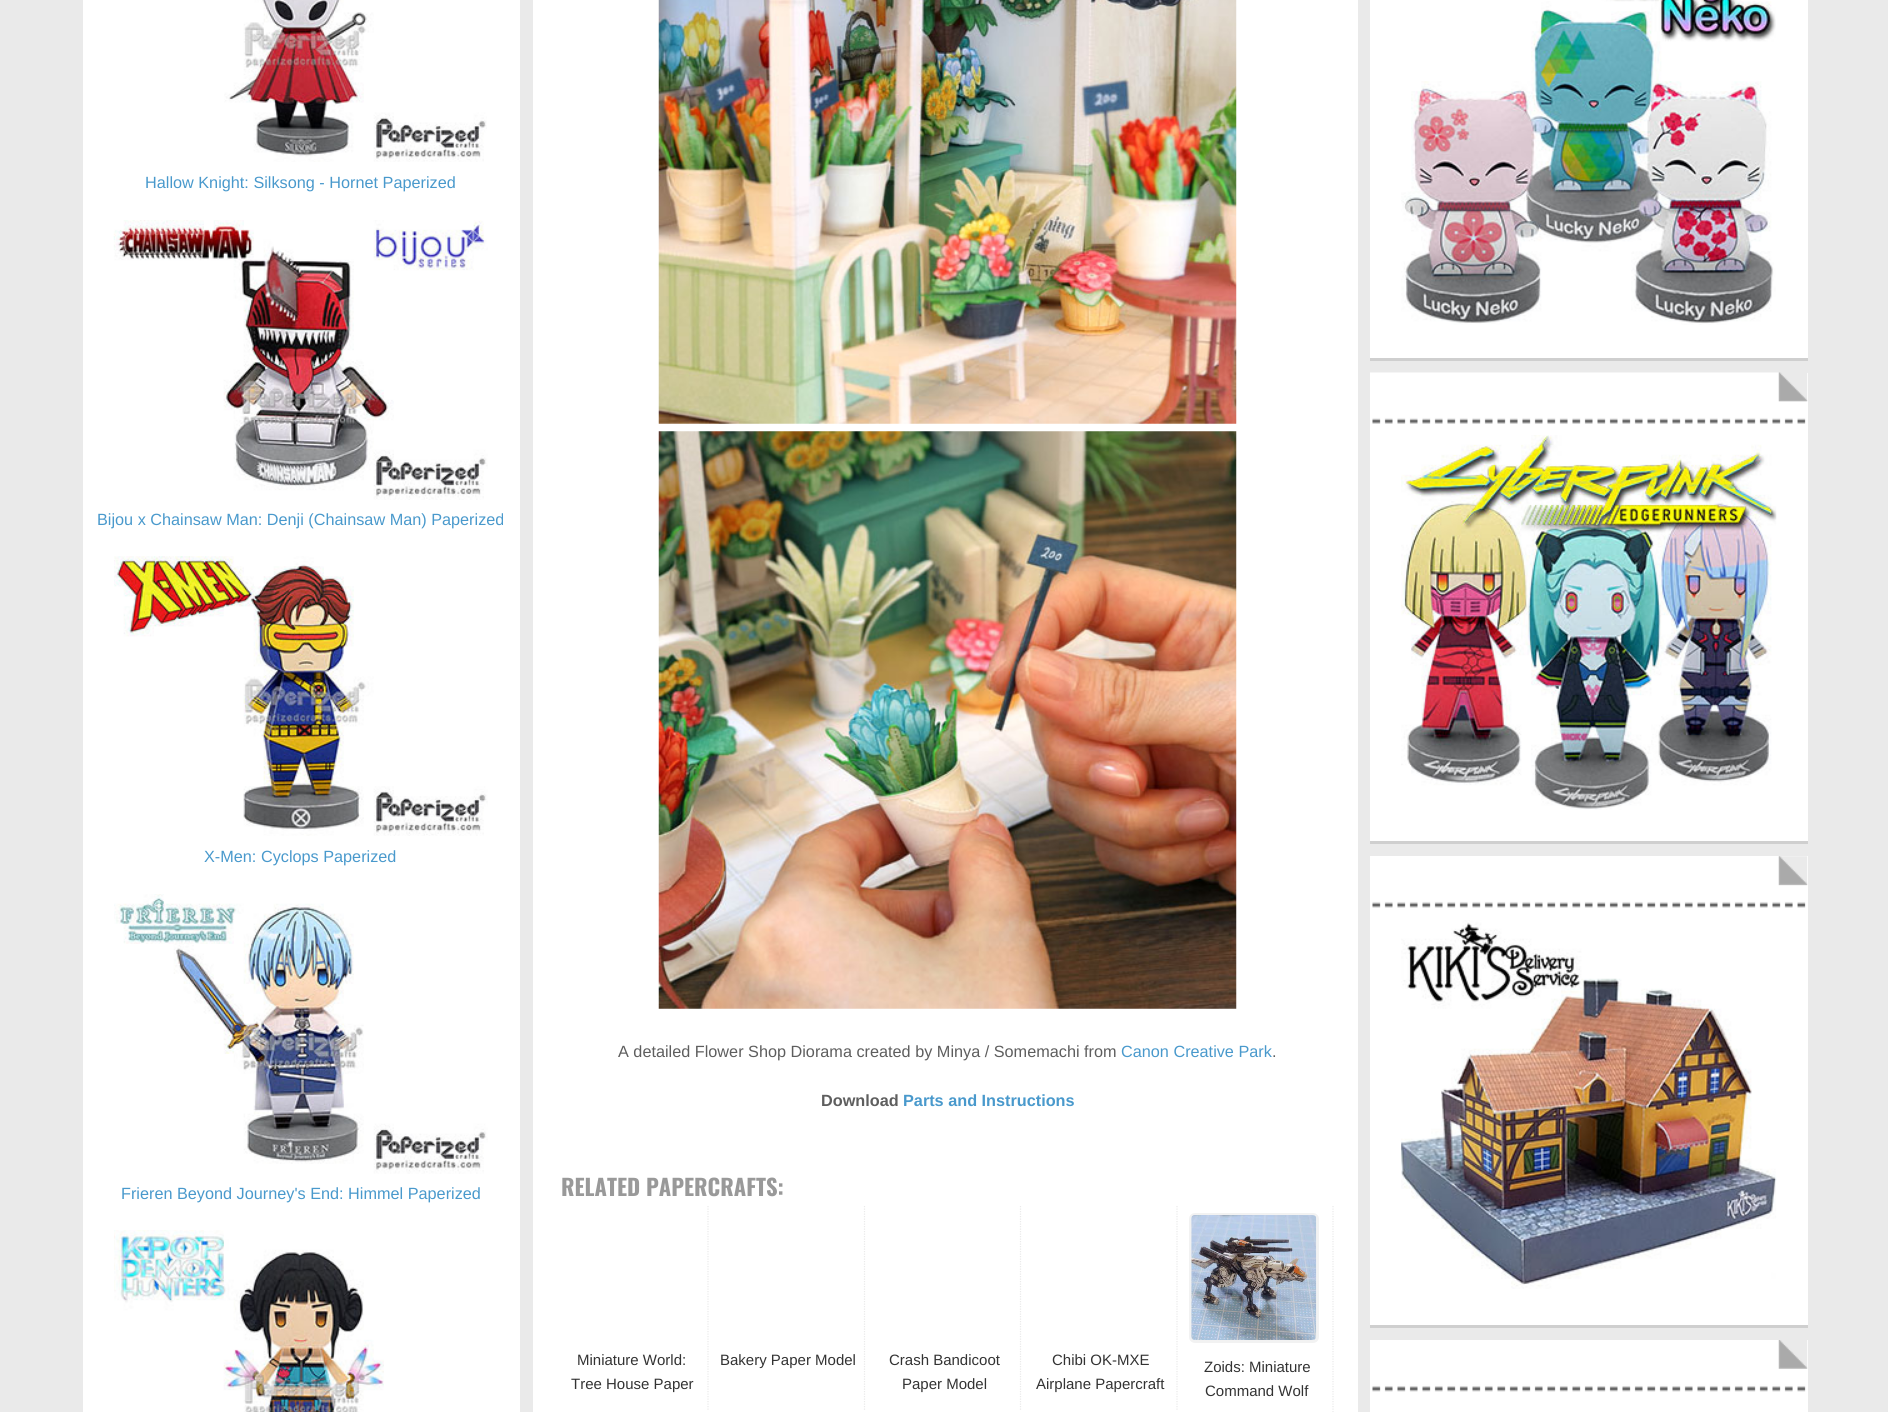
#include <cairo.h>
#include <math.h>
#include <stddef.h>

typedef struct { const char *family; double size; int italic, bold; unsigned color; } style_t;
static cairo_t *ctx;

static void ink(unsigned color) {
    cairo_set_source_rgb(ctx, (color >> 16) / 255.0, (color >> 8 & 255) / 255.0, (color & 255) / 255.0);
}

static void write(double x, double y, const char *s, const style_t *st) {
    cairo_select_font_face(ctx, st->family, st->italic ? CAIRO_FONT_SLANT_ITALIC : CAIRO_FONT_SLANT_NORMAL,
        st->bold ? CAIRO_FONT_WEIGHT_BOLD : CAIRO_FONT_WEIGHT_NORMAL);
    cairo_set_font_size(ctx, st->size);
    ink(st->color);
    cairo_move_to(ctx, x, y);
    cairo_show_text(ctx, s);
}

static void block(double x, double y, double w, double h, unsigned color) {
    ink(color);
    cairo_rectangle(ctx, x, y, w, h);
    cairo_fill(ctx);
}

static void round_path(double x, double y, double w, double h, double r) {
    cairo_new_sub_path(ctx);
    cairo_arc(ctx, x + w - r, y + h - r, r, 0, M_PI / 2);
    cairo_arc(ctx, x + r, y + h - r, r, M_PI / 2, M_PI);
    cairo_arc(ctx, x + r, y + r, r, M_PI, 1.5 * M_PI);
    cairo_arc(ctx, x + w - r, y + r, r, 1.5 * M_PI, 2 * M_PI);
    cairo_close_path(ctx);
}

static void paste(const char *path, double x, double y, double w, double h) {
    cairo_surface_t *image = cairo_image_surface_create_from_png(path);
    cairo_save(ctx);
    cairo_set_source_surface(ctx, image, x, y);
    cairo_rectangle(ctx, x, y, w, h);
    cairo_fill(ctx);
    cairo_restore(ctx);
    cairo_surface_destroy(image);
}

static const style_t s1 = {"Liberation Sans", 16.25, 0, 0, 0x4999cc};
static const style_t s2 = {"Liberation Sans", 16.25, 0, 0, 0x5e5e5e};
static const style_t s3 = {"Liberation Sans", 16.25, 0, 1, 0x5e5e5e};
static const style_t s4 = {"Liberation Sans", 16.25, 0, 1, 0x4999cc};
static const style_t s5 = {"Oswald", 22.5, 0, 1, 0x999999};
static const style_t s6 = {"Liberation Sans", 15, 0, 0, 0x333333};

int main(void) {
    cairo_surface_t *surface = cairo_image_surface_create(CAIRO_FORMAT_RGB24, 1888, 1412);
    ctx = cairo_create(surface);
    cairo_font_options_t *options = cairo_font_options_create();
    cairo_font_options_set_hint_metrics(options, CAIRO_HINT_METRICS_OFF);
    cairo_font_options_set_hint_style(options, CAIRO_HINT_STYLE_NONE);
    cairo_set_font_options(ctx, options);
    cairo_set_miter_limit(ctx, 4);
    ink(0xeaeaea);
    cairo_paint(ctx);
    block(83, 0, 437, 1412, 0xffffff);
    paste("pic1.png", 224, 0, 263, 162);
    write(145, 188, "Hallow Knight: Silksong - Hornet Paperized", &s1);
    paste("pic2.png", 113, 220, 375, 280);
    write(97, 525, "Bijou x Chainsaw Man: Denji (Chainsaw Man) Paperized", &s1);
    paste("pic3.png", 114, 556, 374, 280);
    write(204, 862, "X-Men: Cyclops Paperized", &s1);
    paste("pic4.png", 114, 894, 374, 280);
    write(121, 1199, "Frieren Beyond Journey's End: Himmel Paperized", &s1);
    paste("pic5.png", 114, 1230, 270, 182);
    block(533, 0, 825, 1412, 0xffffff);
    paste("pic6.png", 658, 0, 579, 424);
    paste("pic7.png", 658, 431, 579, 578);
    write(618, 1057, "A detailed Flower Shop Diorama created by Minya / Somemachi from", &s2);
    write(1121, 1057, "Canon Creative Park", &s1);
    write(1272, 1057, ".", &s2);
    write(821, 1106, "Download", &s3);
    write(903, 1106, "Parts and Instructions", &s4);
    write(561, 1196, "RELATED PAPERCRAFTS:", &s5);
    cairo_new_path(ctx);
    cairo_move_to(ctx, 708, 1206);
    cairo_line_to(ctx, 708, 1411);
    ink(0xeaeaea);
    cairo_set_line_width(ctx, 1.2);
    cairo_set_dash(ctx, (double[]){1.25, 1.25}, 2, 0);
    cairo_stroke(ctx);
    write(577, 1365, "Miniature World:", &s6);
    write(571, 1389, "Tree House Paper", &s6);
    cairo_new_path(ctx);
    cairo_move_to(ctx, 864.5, 1206);
    cairo_line_to(ctx, 864.5, 1411);
    ink(0xeaeaea);
    cairo_stroke(ctx);
    write(720, 1365, "Bakery Paper Model", &s6);
    cairo_new_path(ctx);
    cairo_move_to(ctx, 1020.5, 1206);
    cairo_line_to(ctx, 1020.5, 1411);
    ink(0xeaeaea);
    cairo_stroke(ctx);
    write(889, 1365, "Crash Bandicoot", &s6);
    write(902, 1389, "Paper Model", &s6);
    cairo_new_path(ctx);
    cairo_move_to(ctx, 1177, 1206);
    cairo_line_to(ctx, 1177, 1411);
    ink(0xeaeaea);
    cairo_stroke(ctx);
    write(1052, 1365, "Chibi OK-MXE", &s6);
    write(1036, 1389, "Airplane Papercraft", &s6);
    cairo_new_path(ctx);
    cairo_move_to(ctx, 1333, 1206);
    cairo_line_to(ctx, 1333, 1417.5);
    ink(0xeaeaea);
    cairo_stroke(ctx);
    round_path(1190.5, 1214.5, 127, 127, 4.5);
    ink(0xf2f2f2);
    cairo_set_line_width(ctx, 3);
    cairo_set_dash(ctx, NULL, 0, 0);
    cairo_stroke(ctx);
    paste("pic8.png", 1191, 1215, 126, 125);
    write(1204, 1372, "Zoids: Miniature", &s6);
    write(1205, 1396, "Command Wolf", &s6);
    block(1370, 0, 438, 358, 0xffffff);
    block(1370, 358, 438, 3, 0xcfcfcf);
    paste("pic9.png", 1401, 0, 375, 325);
    block(1370, 373, 438, 468, 0xffffff);
    paste("pic10.png", 1370, 372, 438, 52);
    block(1370, 841, 438, 3, 0xcfcfcf);
    paste("pic11.png", 1401, 435, 376, 375);
    block(1370, 856, 438, 469, 0xffffff);
    paste("pic12.png", 1372, 856, 436, 52);
    block(1370, 1325, 438, 3, 0xcfcfcf);
    paste("pic13.png", 1401, 920, 376, 369);
    block(1370, 1340, 438, 72, 0xffffff);
    paste("pic14.png", 1372, 1340, 436, 52);
    cairo_surface_write_to_png(surface, "screenshot.png");
    cairo_font_options_destroy(options);
    cairo_destroy(ctx);
    cairo_surface_destroy(surface);
    return 0;
}
